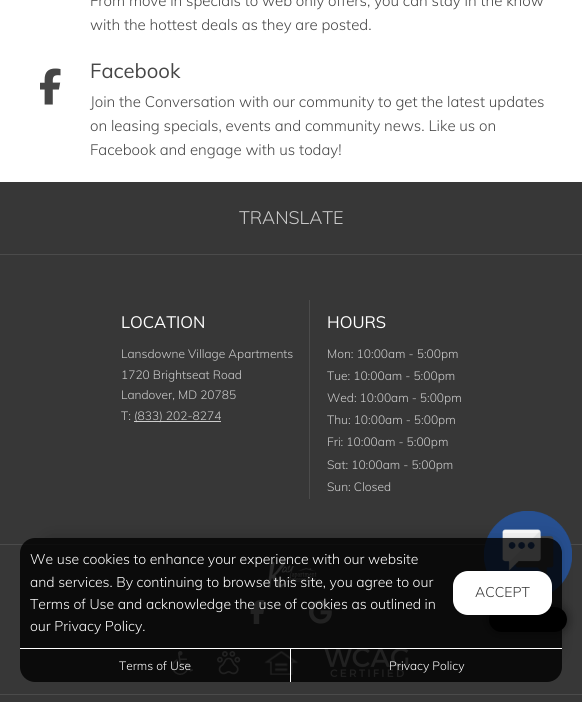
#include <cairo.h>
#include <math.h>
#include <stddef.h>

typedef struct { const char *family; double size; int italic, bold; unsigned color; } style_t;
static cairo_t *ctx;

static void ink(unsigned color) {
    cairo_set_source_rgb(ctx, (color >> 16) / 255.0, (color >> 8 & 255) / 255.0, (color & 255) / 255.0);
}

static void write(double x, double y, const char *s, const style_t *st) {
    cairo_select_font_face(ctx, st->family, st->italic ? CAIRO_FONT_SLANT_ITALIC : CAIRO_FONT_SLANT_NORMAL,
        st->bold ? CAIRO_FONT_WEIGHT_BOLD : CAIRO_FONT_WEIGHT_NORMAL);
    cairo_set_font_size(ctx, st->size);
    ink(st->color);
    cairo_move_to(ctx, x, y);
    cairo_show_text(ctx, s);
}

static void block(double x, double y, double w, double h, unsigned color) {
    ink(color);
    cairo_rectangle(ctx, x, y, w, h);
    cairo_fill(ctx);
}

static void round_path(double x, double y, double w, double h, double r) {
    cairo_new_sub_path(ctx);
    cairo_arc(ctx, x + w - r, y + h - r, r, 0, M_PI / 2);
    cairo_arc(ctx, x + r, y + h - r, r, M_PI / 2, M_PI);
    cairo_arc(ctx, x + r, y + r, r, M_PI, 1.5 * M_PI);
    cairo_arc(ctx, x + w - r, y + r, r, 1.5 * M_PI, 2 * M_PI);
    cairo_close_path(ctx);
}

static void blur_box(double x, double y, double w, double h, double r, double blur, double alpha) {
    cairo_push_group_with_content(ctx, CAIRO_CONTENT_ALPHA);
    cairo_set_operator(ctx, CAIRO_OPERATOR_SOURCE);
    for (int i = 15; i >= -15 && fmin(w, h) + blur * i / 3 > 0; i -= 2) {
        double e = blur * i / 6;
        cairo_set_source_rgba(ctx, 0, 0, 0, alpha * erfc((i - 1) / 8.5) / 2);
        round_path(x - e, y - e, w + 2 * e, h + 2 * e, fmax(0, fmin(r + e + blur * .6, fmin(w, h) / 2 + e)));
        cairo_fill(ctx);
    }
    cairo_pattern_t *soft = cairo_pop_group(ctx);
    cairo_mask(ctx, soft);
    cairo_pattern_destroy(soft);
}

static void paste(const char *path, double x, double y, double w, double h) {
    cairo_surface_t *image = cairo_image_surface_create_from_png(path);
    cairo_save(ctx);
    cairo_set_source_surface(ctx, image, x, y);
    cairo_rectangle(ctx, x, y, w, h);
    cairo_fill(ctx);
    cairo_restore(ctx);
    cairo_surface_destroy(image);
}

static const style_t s1 = {"Muli Light", 15, 0, 0, 0x464646};
static const style_t s2 = {"Muli", 20.25, 0, 0, 0x464646};
static const style_t s3 = {"Muli Light", 18, 0, 0, 0xcdcdcd};
static const style_t s4 = {"Muli", 16.5, 0, 0, 0xffffff};
static const style_t s5 = {"Muli Light", 12, 0, 0, 0xcdcdcd};
static const style_t s6 = {"Muli Light", 14, 0, 0, 0xffffff};
static const style_t s7 = {"Muli Light", 14, 0, 0, 0x333333};
static const style_t s8 = {"Muli Light", 12, 0, 0, 0xffffff};

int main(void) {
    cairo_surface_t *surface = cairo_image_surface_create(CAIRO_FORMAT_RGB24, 582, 702);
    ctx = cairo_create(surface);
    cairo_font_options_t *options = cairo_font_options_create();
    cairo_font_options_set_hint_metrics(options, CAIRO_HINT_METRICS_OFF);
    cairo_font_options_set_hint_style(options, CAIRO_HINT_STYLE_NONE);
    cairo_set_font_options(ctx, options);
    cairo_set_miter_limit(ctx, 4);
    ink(0xffffff);
    cairo_paint(ctx);
    write(90, 6, "From move in specials to web only offers, you can stay in the know", &s1);
    write(90, 30, "with the hottest deals as they are posted.", &s1);
    paste("pic1.png", 40, 68, 21, 37);
    write(90, 78, "Facebook", &s2);
    write(90, 107, "Join the Conversation with our community to get the latest updates", &s1);
    write(90, 131, "on leasing specials, events and community news. Like us on", &s1);
    write(90, 155, "Facebook and engage with us today!", &s1);
    block(0, 182, 582, 520, 0x373737);
    block(0, 254, 582, 1, 0x4b4b4b);
    write(239, 224, "TRANSLATE", &s3);
    write(121, 328, "LOCATION", &s4);
    write(121, 358, "Lansdowne Village Apartments", &s5);
    write(121, 379, "1720 Brightseat Road", &s5);
    write(121, 399, "Landover, MD 20785", &s5);
    write(121, 420, "T:", &s5);
    block(134, 421, 87, 1, 0xcdcdcd);
    write(134, 420, "(833) 202-8274", &s5);
    block(309, 300, 1, 199, 0x4b4b4b);
    write(327, 328, "HOURS", &s4);
    write(327, 358, "Mon: 10:00am - 5:00pm", &s5);
    write(327, 380, "Tue: 10:00am - 5:00pm", &s5);
    write(327, 402, "Wed: 10:00am - 5:00pm", &s5);
    write(327, 424, "Thu: 10:00am - 5:00pm", &s5);
    write(327, 446, "Fri: 10:00am - 5:00pm", &s5);
    write(327, 469, "Sat: 10:00am - 5:00pm", &s5);
    write(327, 491, "Sun: Closed", &s5);
    block(0, 544, 582, 1, 0x4b4b4b);
    paste("pic2.png", 268, 560, 49, 28);
    paste("pic3.png", 250, 600, 15, 24);
    paste("pic4.png", 309, 600, 23, 24);
    paste("pic5.png", 172, 651, 21, 24);
    paste("pic6.png", 217, 651, 24, 24);
    paste("pic7.png", 264, 651, 35, 24);
    paste("pic8.png", 324, 647, 85, 30);
    block(0, 694, 582, 1, 0x4b4b4b);
    ink(0x000000);
    blur_box(489, 607, 78, 25, 12.5, 5.5, 0.45);
    paste("pic9.png", 484, 511, 88, 81);
    ink(0x000000);
    round_path(489, 607, 78, 25, 12.5);
    cairo_fill(ctx);
    cairo_save(ctx);
    cairo_set_fill_rule(ctx, CAIRO_FILL_RULE_EVEN_ODD);
    cairo_new_path(ctx);
    cairo_move_to(ctx, 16, 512);
    cairo_line_to(ctx, 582, 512);
    cairo_line_to(ctx, 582, 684);
    cairo_line_to(ctx, 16, 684);
    cairo_close_path(ctx);
    cairo_move_to(ctx, 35, 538);
    cairo_line_to(ctx, 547, 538);
    cairo_curve_to(ctx, 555.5, 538, 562, 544.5, 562, 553);
    cairo_line_to(ctx, 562, 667);
    cairo_curve_to(ctx, 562, 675.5, 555.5, 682, 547, 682);
    cairo_line_to(ctx, 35, 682);
    cairo_curve_to(ctx, 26.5, 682, 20, 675.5, 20, 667);
    cairo_line_to(ctx, 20, 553);
    cairo_curve_to(ctx, 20, 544.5, 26.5, 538, 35, 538);
    cairo_close_path(ctx);
    cairo_clip(ctx);
    ink(0x000000);
    blur_box(50, 546, 502, 104, 0, 11, 0.42);
    cairo_restore(ctx);
    cairo_set_source_rgba(ctx, 0, 0, 0, 0.8);
    round_path(20, 538, 542, 144, 15);
    cairo_fill(ctx);
    write(30, 564, "We use cookies to enhance your experience with our website", &s6);
    write(30, 587, "and services. By continuing to browse this site, you agree to our", &s6);
    write(30, 609, "Terms of Use and acknowledge the use of cookies as outlined in", &s6);
    write(30, 631, "our Privacy Policy.", &s6);
    round_path(453, 571, 99, 44, 15);
    cairo_fill(ctx);
    write(475, 597, "ACCEPT", &s7);
    block(20, 648, 542, 1, 0xffffff);
    block(290, 649, 1, 33, 0xffffff);
    write(119, 670, "Terms of Use", &s8);
    write(389, 670, "Privacy Policy", &s8);
    cairo_surface_write_to_png(surface, "screenshot.png");
    cairo_font_options_destroy(options);
    cairo_destroy(ctx);
    cairo_surface_destroy(surface);
    return 0;
}
